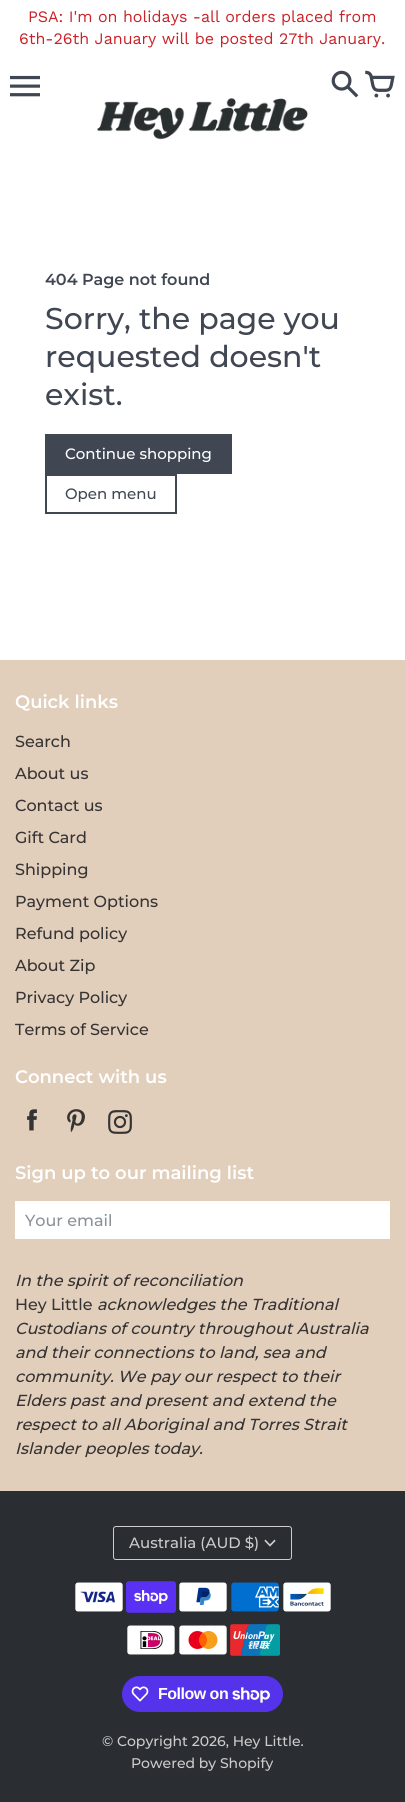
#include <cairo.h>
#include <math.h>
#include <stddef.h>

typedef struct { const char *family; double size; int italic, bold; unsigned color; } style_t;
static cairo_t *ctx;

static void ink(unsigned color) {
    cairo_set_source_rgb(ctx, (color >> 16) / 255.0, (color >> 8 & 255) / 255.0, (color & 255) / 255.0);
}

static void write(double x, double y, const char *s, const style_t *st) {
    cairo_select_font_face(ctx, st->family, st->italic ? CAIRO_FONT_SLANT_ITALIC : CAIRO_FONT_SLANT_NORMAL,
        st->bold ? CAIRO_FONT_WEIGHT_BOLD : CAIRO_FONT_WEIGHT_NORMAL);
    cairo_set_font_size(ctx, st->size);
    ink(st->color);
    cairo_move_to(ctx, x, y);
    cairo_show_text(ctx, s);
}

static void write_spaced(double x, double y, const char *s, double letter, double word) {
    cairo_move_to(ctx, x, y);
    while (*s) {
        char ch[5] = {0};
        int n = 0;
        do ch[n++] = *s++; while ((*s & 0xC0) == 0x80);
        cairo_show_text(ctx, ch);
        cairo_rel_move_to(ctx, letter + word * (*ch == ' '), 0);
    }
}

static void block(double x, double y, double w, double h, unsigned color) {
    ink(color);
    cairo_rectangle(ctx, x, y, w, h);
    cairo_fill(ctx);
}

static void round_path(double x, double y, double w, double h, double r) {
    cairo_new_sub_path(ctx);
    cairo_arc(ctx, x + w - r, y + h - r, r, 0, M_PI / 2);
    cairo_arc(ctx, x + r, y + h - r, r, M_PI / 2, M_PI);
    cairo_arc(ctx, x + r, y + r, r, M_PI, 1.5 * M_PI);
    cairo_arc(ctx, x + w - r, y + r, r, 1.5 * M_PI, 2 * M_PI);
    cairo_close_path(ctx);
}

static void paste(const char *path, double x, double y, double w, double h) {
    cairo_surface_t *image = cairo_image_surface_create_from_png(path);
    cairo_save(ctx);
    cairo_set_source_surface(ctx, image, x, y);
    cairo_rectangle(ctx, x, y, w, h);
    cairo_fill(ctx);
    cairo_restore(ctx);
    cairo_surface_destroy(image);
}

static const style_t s1 = {"Work Sans", 16, 0, 0, 0xc92228};
static const style_t s2 = {"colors", 30, 0, 0, 0x404752};
static const style_t s3 = {"Montserrat SemiBold", 16, 0, 0, 0x404752};
static const style_t s4 = {"Montserrat Medium", 30, 0, 0, 0x404752};
static const style_t s5 = {"Montserrat Medium", 15, 0, 0, 0xffffff};
static const style_t s6 = {"Montserrat Medium", 15, 0, 0, 0x404752};
static const style_t s7 = {"Montserrat SemiBold", 18, 0, 0, 0xffffff};
static const style_t s8 = {"Montserrat Medium", 16, 0, 0, 0x353333};
static const style_t s9 = {"Montserrat Medium", 16, 0, 0, 0x8c9197};
static const style_t s10 = {"Montserrat Medium", 16, 1, 0, 0x353333};
static const style_t s11 = {"Montserrat Medium", 15, 0, 0, 0xcccccc};
static const style_t s12 = {"Montserrat Medium", 14, 0, 0, 0xcccccc};

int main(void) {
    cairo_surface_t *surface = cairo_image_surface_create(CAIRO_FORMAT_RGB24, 405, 1802);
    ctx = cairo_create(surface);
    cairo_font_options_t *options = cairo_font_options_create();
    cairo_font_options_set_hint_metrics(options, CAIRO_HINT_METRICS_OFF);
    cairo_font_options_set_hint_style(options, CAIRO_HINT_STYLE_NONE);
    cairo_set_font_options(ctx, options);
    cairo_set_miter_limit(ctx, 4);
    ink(0xffffff);
    cairo_paint(ctx);
    write(28, 22, "PSA: I'm on holidays -all orders placed from", &s1);
    write(19, 44, "6th-26th January will be posted 27th January.", &s1);
    write(10, 103, "1", &s2);
    write(330, 101, "2", &s2);
    write(365, 101, "3", &s2);
    paste("pic1.png", 97, 98, 211, 42);
    write(45, 285, "404 Page not found", &s3);
    write(45, 329, "Sorry, the page you", &s4);
    write(45, 367, "requested doesn't", &s4);
    write(45, 405, "exist.", &s4);
    block(45, 434, 187, 40, 0x404752);
    write(65, 459, "Continue shopping", &s5);
    cairo_rectangle(ctx, 46, 475, 130, 38);
    ink(0x404752);
    cairo_stroke(ctx);
    write(65, 499, "Open menu", &s6);
    block(0, 660, 405, 831, 0xe1cebb);
    write(15, 708, "Quick links", &s7);
    write(15, 747, "Search", &s8);
    write(15, 779, "About us", &s8);
    write(15, 811, "Contact us", &s8);
    write(15, 843, "Gift Card", &s8);
    write(15, 875, "Shipping", &s8);
    write(15, 907, "Payment Options", &s8);
    write(15, 939, "Refund policy", &s8);
    write(15, 971, "About Zip", &s8);
    write(15, 1003, "Privacy Policy", &s8);
    write(15, 1035, "Terms of Service", &s8);
    write(15, 1083, "Connect with us", &s7);
    paste("pic2.png", 27, 1109, 10, 22);
    paste("pic3.png", 67, 1109, 18, 24);
    paste("pic4.png", 108, 1110, 24, 24);
    write(15, 1179, "Sign up to our mailing list", &s7);
    block(15, 1201, 375, 38, 0xffffff);
    write(25, 1226, "Your email", &s9);
    write(15, 1286, "In the spirit of reconciliation", &s10);
    write(15, 1310, "Hey Little", &s8);
    write(97, 1310, "acknowledges the Traditional", &s10);
    write(15, 1334, "Custodians of country throughout Australia", &s10);
    write(15, 1358, "and their connections to land, sea and", &s10);
    write(15, 1382, "community. We pay our respect to their", &s10);
    write(15, 1406, "Elders past and present and extend the", &s10);
    write(15, 1430, "respect to all Aboriginal and Torres Strait", &s10);
    write(15, 1454, "Islander peoples today.", &s10);
    block(0, 1491, 405, 311, 0x2a2d32);
    round_path(113.5, 1526.5, 178, 33, 2.5);
    ink(0xcccccc);
    cairo_set_line_width(ctx, 1);
    cairo_stroke(ctx);
    write(129, 1548, "Australia (AUD $)", &s11);
    paste("pic5.png", 264, 1539, 12, 8);
    paste("pic6.png", 75, 1582, 48, 30);
    paste("pic7.png", 126, 1581, 50, 32);
    paste("pic8.png", 179, 1582, 48, 30);
    paste("pic9.png", 231, 1582, 48, 30);
    paste("pic10.png", 283, 1582, 48, 30);
    paste("pic11.png", 127, 1625, 48, 30);
    paste("pic12.png", 179, 1625, 48, 30);
    paste("pic13.png", 230, 1624, 50, 32);
    ink(0x5433eb);
    round_path(122, 1676, 161, 36, 18);
    cairo_fill(ctx);
    paste("pic14.png", 131, 1686, 18, 16);
    cairo_select_font_face(ctx, "Liberation Sans", CAIRO_FONT_SLANT_NORMAL, CAIRO_FONT_WEIGHT_BOLD);
    cairo_set_font_size(ctx, 16);
    ink(0xffffff);
    write_spaced(158, 1699, "Follow on", -0.5, 0);
    paste("pic15.png", 232, 1687, 38, 16);
    write(102, 1746, "© Copyright 2026, Hey Little.", &s12);
    write(131, 1768, "Powered by Shopify", &s12);
    cairo_surface_write_to_png(surface, "screenshot.png");
    cairo_font_options_destroy(options);
    cairo_destroy(ctx);
    cairo_surface_destroy(surface);
    return 0;
}
